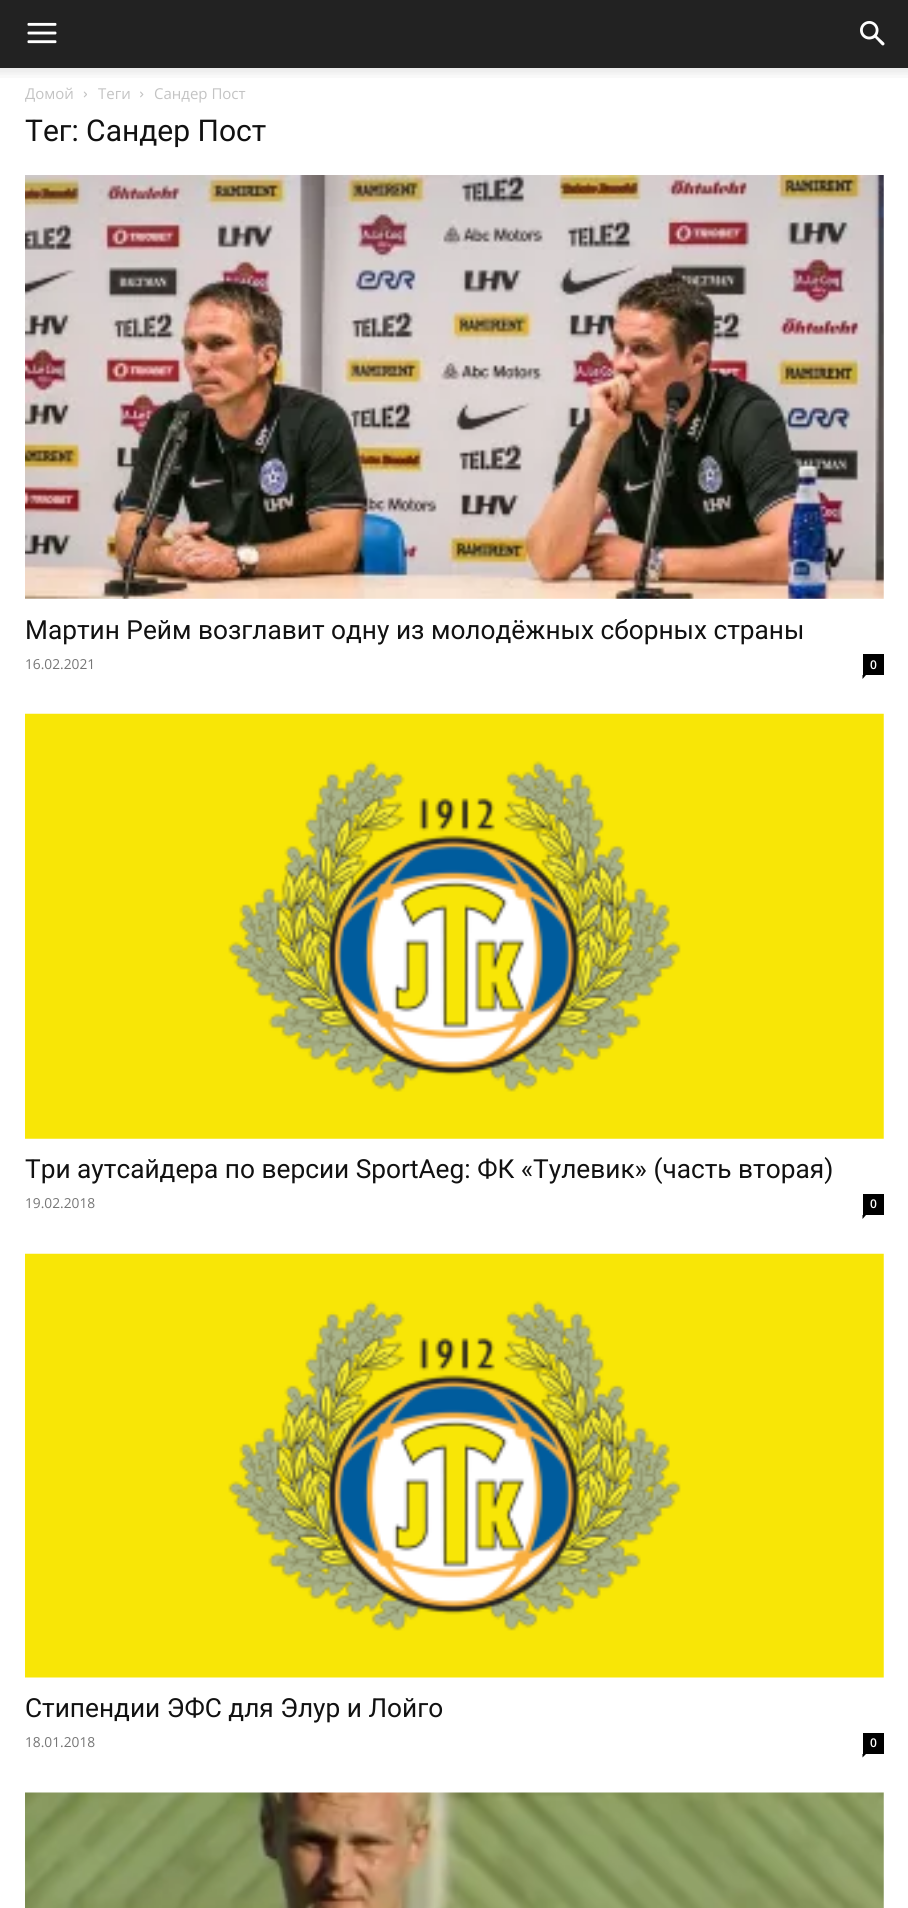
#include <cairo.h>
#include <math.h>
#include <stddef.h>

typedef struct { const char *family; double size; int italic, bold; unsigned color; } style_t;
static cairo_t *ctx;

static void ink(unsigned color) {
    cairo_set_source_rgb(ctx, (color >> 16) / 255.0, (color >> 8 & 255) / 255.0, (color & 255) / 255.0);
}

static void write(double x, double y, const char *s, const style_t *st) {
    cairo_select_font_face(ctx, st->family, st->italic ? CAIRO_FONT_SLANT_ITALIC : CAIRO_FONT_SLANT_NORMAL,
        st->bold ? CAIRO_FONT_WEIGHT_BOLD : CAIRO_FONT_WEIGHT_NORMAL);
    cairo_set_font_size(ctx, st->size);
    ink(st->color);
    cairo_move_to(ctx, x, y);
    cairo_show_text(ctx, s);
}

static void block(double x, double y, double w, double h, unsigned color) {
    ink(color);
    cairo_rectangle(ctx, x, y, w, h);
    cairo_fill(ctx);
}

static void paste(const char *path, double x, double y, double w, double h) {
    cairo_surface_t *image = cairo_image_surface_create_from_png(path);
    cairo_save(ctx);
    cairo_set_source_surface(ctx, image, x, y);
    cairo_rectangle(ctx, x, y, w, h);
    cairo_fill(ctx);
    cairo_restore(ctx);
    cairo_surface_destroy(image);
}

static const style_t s1 = {"Open Sans", 15, 0, 0, 0xc3c3c3};
static const style_t s2 = {"Roboto", 30, 0, 0, 0x111111};
static const style_t s3 = {"Roboto", 26.25, 0, 0, 0x111111};
static const style_t s4 = {"Open Sans", 13.75, 0, 0, 0x767676};
static const style_t s5 = {"Open Sans SemiBold", 12, 0, 0, 0xffffff};

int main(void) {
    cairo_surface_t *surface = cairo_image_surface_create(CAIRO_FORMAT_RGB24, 908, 1908);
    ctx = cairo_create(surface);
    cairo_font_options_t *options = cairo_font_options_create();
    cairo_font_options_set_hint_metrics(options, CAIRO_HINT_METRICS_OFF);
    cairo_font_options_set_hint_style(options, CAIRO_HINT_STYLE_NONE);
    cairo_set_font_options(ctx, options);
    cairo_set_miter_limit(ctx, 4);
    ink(0xffffff);
    cairo_paint(ctx);
    block(0, 0, 908, 68, 0x222222);
    paste("pic1.png", 27, 22, 30, 22);
    paste("pic2.png", 860, 21, 25, 25);
    paste("pic3.png", 0, 68, 908, 10);
    write(25, 99, "Домой", &s1);
    paste("pic4.png", 83, 91, 4, 7);
    write(98, 99, "Теги", &s1);
    paste("pic5.png", 140, 91, 4, 7);
    write(154, 99, "Сандер Пост", &s1);
    write(25, 141, "Тег: Сандер Пост", &s2);
    paste("pic6.png", 25, 175, 859, 424);
    write(25, 639, "Мартин Рейм возглавит одну из молодёжных сборных страны", &s3);
    write(25, 669, "16.02.2021", &s4);
    block(863, 654, 21, 21, 0x000000);
    write(870, 669, "0", &s5);
    ink(0x000000);
    cairo_new_path(ctx);
    cairo_move_to(ctx, 862.5, 675);
    cairo_line_to(ctx, 866, 675);
    cairo_line_to(ctx, 862.5, 679);
    cairo_close_path(ctx);
    cairo_fill(ctx);
    paste("pic7.png", 25, 713, 859, 426);
    write(25, 1178, "Три аутсайдера по версии SportAeg: ФК «Тулевик» (часть вторая)", &s3);
    write(25, 1208, "19.02.2018", &s4);
    block(863, 1194, 21, 21, 0x000000);
    write(870, 1208, "0", &s5);
    ink(0x000000);
    cairo_new_path(ctx);
    cairo_move_to(ctx, 862.5, 1215);
    cairo_line_to(ctx, 866, 1215);
    cairo_line_to(ctx, 862.5, 1219);
    cairo_close_path(ctx);
    cairo_fill(ctx);
    paste("pic8.png", 25, 1253, 859, 425);
    write(25, 1717, "Стипендии ЭФС для Элур и Лойго", &s3);
    write(25, 1747, "18.01.2018", &s4);
    block(863, 1733, 21, 21, 0x000000);
    write(870, 1747, "0", &s5);
    ink(0x000000);
    cairo_new_path(ctx);
    cairo_move_to(ctx, 862.5, 1754);
    cairo_line_to(ctx, 866, 1754);
    cairo_line_to(ctx, 862.5, 1757.5);
    cairo_close_path(ctx);
    cairo_fill(ctx);
    paste("pic9.png", 25, 1792, 859, 116);
    cairo_surface_write_to_png(surface, "screenshot.png");
    cairo_font_options_destroy(options);
    cairo_destroy(ctx);
    cairo_surface_destroy(surface);
    return 0;
}
